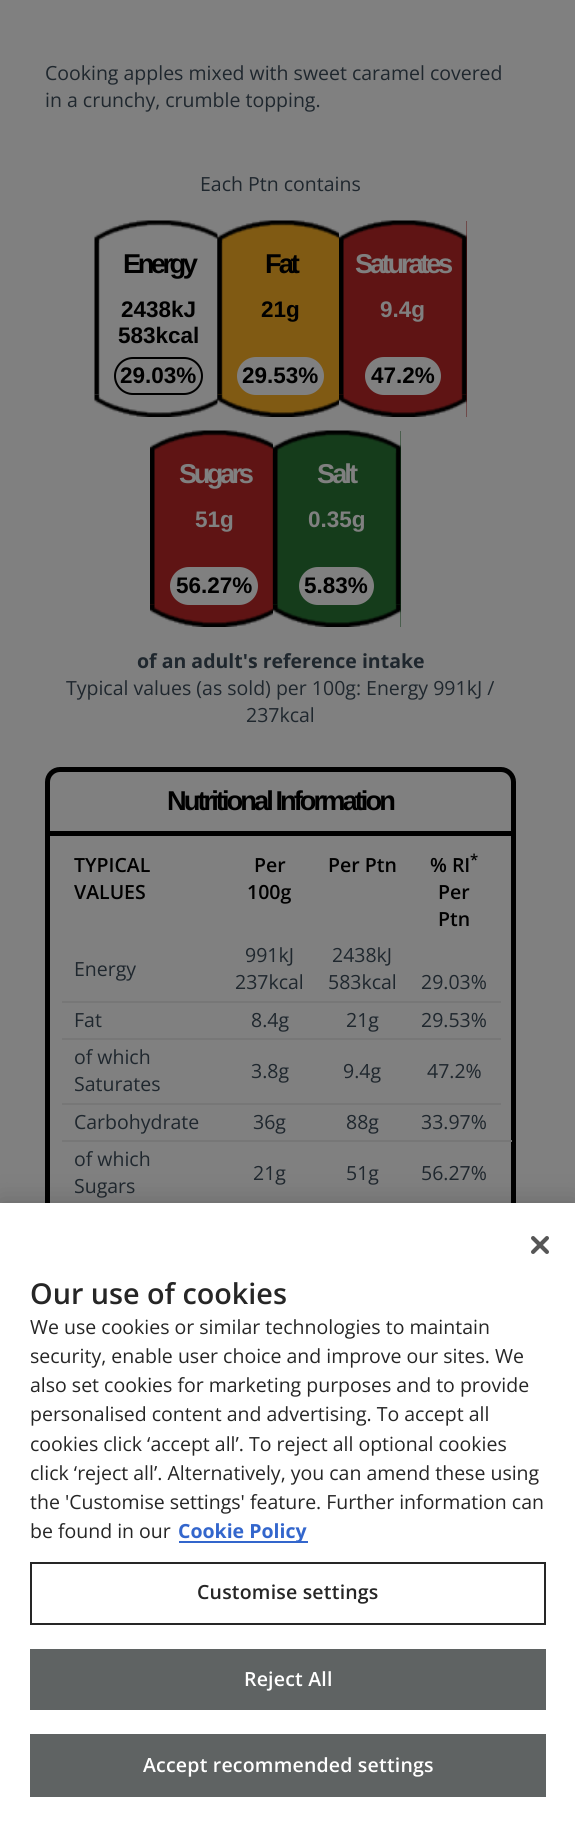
#include <cairo.h>
#include <math.h>
#include <stddef.h>

typedef struct { const char *family; double size; int italic, bold; unsigned color; } style_t;
static cairo_t *ctx;

static void ink(unsigned color) {
    cairo_set_source_rgb(ctx, (color >> 16) / 255.0, (color >> 8 & 255) / 255.0, (color & 255) / 255.0);
}

static void write(double x, double y, const char *s, const style_t *st) {
    cairo_select_font_face(ctx, st->family, st->italic ? CAIRO_FONT_SLANT_ITALIC : CAIRO_FONT_SLANT_NORMAL,
        st->bold ? CAIRO_FONT_WEIGHT_BOLD : CAIRO_FONT_WEIGHT_NORMAL);
    cairo_set_font_size(ctx, st->size);
    ink(st->color);
    cairo_move_to(ctx, x, y);
    cairo_show_text(ctx, s);
}

static void write_spaced(double x, double y, const char *s, double letter, double word) {
    cairo_move_to(ctx, x, y);
    while (*s) {
        char ch[5] = {0};
        int n = 0;
        do ch[n++] = *s++; while ((*s & 0xC0) == 0x80);
        cairo_show_text(ctx, ch);
        cairo_rel_move_to(ctx, letter + word * (*ch == ' '), 0);
    }
}

static void block(double x, double y, double w, double h, unsigned color) {
    ink(color);
    cairo_rectangle(ctx, x, y, w, h);
    cairo_fill(ctx);
}

static void round_path(double x, double y, double w, double h, double r) {
    cairo_new_sub_path(ctx);
    cairo_arc(ctx, x + w - r, y + h - r, r, 0, M_PI / 2);
    cairo_arc(ctx, x + r, y + h - r, r, M_PI / 2, M_PI);
    cairo_arc(ctx, x + r, y + r, r, M_PI, 1.5 * M_PI);
    cairo_arc(ctx, x + w - r, y + r, r, 1.5 * M_PI, 2 * M_PI);
    cairo_close_path(ctx);
}

static void blur_box(double x, double y, double w, double h, double r, double blur, double alpha) {
    cairo_push_group_with_content(ctx, CAIRO_CONTENT_ALPHA);
    cairo_set_operator(ctx, CAIRO_OPERATOR_SOURCE);
    for (int i = 15; i >= -15 && fmin(w, h) + blur * i / 3 > 0; i -= 2) {
        double e = blur * i / 6;
        cairo_set_source_rgba(ctx, 0, 0, 0, alpha * erfc((i - 1) / 8.5) / 2);
        round_path(x - e, y - e, w + 2 * e, h + 2 * e, fmax(0, fmin(r + e + blur * .6, fmin(w, h) / 2 + e)));
        cairo_fill(ctx);
    }
    cairo_pattern_t *soft = cairo_pop_group(ctx);
    cairo_mask(ctx, soft);
    cairo_pattern_destroy(soft);
}

static void paste(const char *path, double x, double y, double w, double h) {
    cairo_surface_t *image = cairo_image_surface_create_from_png(path);
    cairo_save(ctx);
    cairo_set_source_surface(ctx, image, x, y);
    cairo_rectangle(ctx, x, y, w, h);
    cairo_fill(ctx);
    cairo_restore(ctx);
    cairo_surface_destroy(image);
}

static const style_t s1 = {"Open Sans", 19.5, 0, 0, 0x1f272e};
static const style_t s2 = {"Liberation Sans", 22.5, 0, 1, 0x000000};
static const style_t s3 = {"Liberation Sans", 22.5, 0, 1, 0x808080};
static const style_t s4 = {"Open Sans", 19.5, 0, 1, 0x1f272e};
static const style_t s5 = {"Open Sans SemiBold", 19.5, 0, 0, 0x000000};
static const style_t s6 = {"Open Sans SemiBold", 15, 0, 0, 0x000000};
static const style_t s7 = {"Open Sans SemiBold", 28.75, 0, 0, 0x262626};
static const style_t s8 = {"Open Sans", 19.5, 0, 0, 0x262626};
static const style_t s9 = {"Open Sans", 19.5, 0, 1, 0x3366cc};

int main(void) {
    cairo_surface_t *surface = cairo_image_surface_create(CAIRO_FORMAT_RGB24, 575, 1821);
    ctx = cairo_create(surface);
    cairo_font_options_t *options = cairo_font_options_create();
    cairo_font_options_set_hint_metrics(options, CAIRO_HINT_METRICS_OFF);
    cairo_font_options_set_hint_style(options, CAIRO_HINT_STYLE_NONE);
    cairo_set_font_options(ctx, options);
    cairo_set_miter_limit(ctx, 4);
    ink(0x808080);
    cairo_paint(ctx);
    write(45, 80, "Cooking apples mixed with sweet caramel covered", &s1);
    write(45, 107, "in a crunchy, crumble topping.", &s1);
    write(200, 191, "Each Ptn contains", &s1);
    paste("pic1.png", 94, 220, 128, 23);
    paste("pic2.png", 94, 243, 124, 152);
    cairo_select_font_face(ctx, "Liberation Sans", CAIRO_FONT_SLANT_NORMAL, CAIRO_FONT_WEIGHT_BOLD);
    cairo_set_font_size(ctx, 27.25);
    ink(0x000000);
    write_spaced(123, 273, "Energy", -3.5, 0);
    write(121, 317, "2438kJ", &s2);
    write(118, 343, "583kcal", &s2);
    paste("pic3.png", 94, 394, 124, 23);
    round_path(115, 358, 87, 36, 18);
    cairo_stroke(ctx);
    write(120, 383, "29.03%", &s2);
    block(218, 221, 121, 196, 0x805a13);
    paste("pic4.png", 217, 220, 128, 23);
    paste("pic5.png", 217, 243, 6, 152);
    cairo_set_font_size(ctx, 27.25);
    ink(0x000000);
    write_spaced(265, 273, "Fat", -3, 0);
    write(261, 317, "21g", &s2);
    paste("pic6.png", 217, 394, 122, 23);
    ink(0x808080);
    round_path(238, 358, 85, 36, 18);
    cairo_fill_preserve(ctx);
    cairo_stroke(ctx);
    write(242, 383, "29.53%", &s2);
    block(339, 221, 128, 196, 0x5f1414);
    paste("pic7.png", 339, 220, 128, 23);
    paste("pic8.png", 339, 243, 128, 152);
    cairo_set_font_size(ctx, 27.25);
    ink(0x808080);
    write_spaced(355, 273, "Saturates", -3.25, 0);
    write(380, 317, "9.4g", &s3);
    paste("pic9.png", 339, 394, 128, 23);
    round_path(366, 358, 74, 36, 18);
    cairo_fill_preserve(ctx);
    cairo_stroke(ctx);
    write(371, 383, "47.2%", &s2);
    block(150, 431, 123, 196, 0x5f1414);
    paste("pic10.png", 150, 430, 128, 23);
    paste("pic11.png", 150, 453, 123, 152);
    cairo_set_font_size(ctx, 27.25);
    ink(0x808080);
    write_spaced(179, 483, "Sugars", -3.5, 0);
    write(195, 527, "51g", &s3);
    paste("pic12.png", 150, 604, 123, 23);
    round_path(171, 568, 86, 36, 18);
    cairo_fill_preserve(ctx);
    cairo_stroke(ctx);
    write(176, 593, "56.27%", &s2);
    block(273, 431, 128, 196, 0x153c1b);
    paste("pic13.png", 273, 430, 128, 23);
    paste("pic14.png", 273, 453, 128, 152);
    cairo_set_font_size(ctx, 27.25);
    ink(0x808080);
    write_spaced(317, 483, "Salt", -3, 0);
    write(308, 527, "0.35g", &s3);
    paste("pic15.png", 273, 604, 128, 23);
    round_path(300, 568, 73, 36, 18);
    cairo_fill_preserve(ctx);
    cairo_stroke(ctx);
    write(304, 593, "5.83%", &s2);
    write(137, 668, "of an adult's reference intake", &s4);
    write(66, 695, "Typical values (as sold) per 100g: Energy 991kJ /", &s1);
    write(246, 722, "237kcal", &s1);
    round_path(47.5, 769.5, 466, 562, 12.5);
    ink(0x000000);
    cairo_set_line_width(ctx, 5);
    cairo_stroke(ctx);
    block(50, 831, 462, 5, 0x000000);
    cairo_select_font_face(ctx, "Liberation Sans", CAIRO_FONT_SLANT_NORMAL, CAIRO_FONT_WEIGHT_BOLD);
    cairo_set_font_size(ctx, 27.25);
    write_spaced(167, 810, "Nutritional Information", -2.95, 0);
    write(74, 872, "TYPICAL", &s5);
    write(74, 899, "VALUES", &s5);
    write(254, 872, "Per", &s5);
    write(247, 899, "100g", &s5);
    write(328, 872, "Per Ptn", &s5);
    write(430, 872, "% RI", &s5);
    write(470, 865, "*", &s6);
    write(438, 899, "Per", &s5);
    write(438, 926, "Ptn", &s5);
    write(74, 976, "Energy", &s1);
    write(245, 962, "991kJ", &s1);
    write(235, 989, "237kcal", &s1);
    write(332, 962, "2438kJ", &s1);
    write(328, 989, "583kcal", &s1);
    block(62, 1001, 439, 2, 0x777777);
    write(421, 989, "29.03%", &s1);
    write(74, 1027, "Fat", &s1);
    write(251, 1027, "8.4g", &s1);
    write(346, 1027, "21g", &s1);
    block(62, 1038, 439, 2, 0x777777);
    write(421, 1027, "29.53%", &s1);
    write(74, 1064, "of which", &s1);
    write(74, 1091, "Saturates", &s1);
    write(251, 1078, "3.8g", &s1);
    write(343, 1078, "9.4g", &s1);
    block(62, 1103, 439, 2, 0x777777);
    write(427, 1078, "47.2%", &s1);
    write(74, 1129, "Carbohydrate", &s1);
    write(253, 1129, "36g", &s1);
    write(346, 1129, "88g", &s1);
    write(421, 1129, "33.97%", &s1);
    block(62, 1140, 450, 2, 0x777777);
    write(74, 1166, "of which", &s1);
    write(74, 1193, "Sugars", &s1);
    write(253, 1180, "21g", &s1);
    write(346, 1180, "51g", &s1);
    write(421, 1180, "56.27%", &s1);
    ink(0x000000);
    blur_box(0, 1203, 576, 618, 0, 13.5, 0.2);
    block(0, 1203, 575, 618, 0xffffff);
    paste("pic16.png", 531, 1236, 18, 18);
    write(30, 1304, "Our use of cookies", &s7);
    write(30, 1334, "We use cookies or similar technologies to maintain", &s8);
    write(30, 1363, "security, enable user choice and improve our sites. We", &s8);
    write(30, 1392, "also set cookies for marketing purposes and to provide", &s8);
    write(30, 1421, "personalised content and advertising. To accept all", &s8);
    write(30, 1451, "cookies click ‘accept all’. To reject all optional cookies", &s8);
    write(30, 1480, "click ‘reject all’. Alternatively, you can amend these using", &s8);
    write(30, 1509, "the 'Customise settings' feature. Further information can", &s8);
    write(30, 1538, "be found in our", &s8);
    block(179, 1541, 129, 2, 0x3366cc);
    write(178, 1538, "Cookie Policy", &s9);
    cairo_rectangle(ctx, 31, 1563, 514, 61);
    ink(0x262626);
    cairo_set_line_width(ctx, 2);
    cairo_stroke(ctx);
    cairo_select_font_face(ctx, "Open Sans SemiBold", CAIRO_FONT_SLANT_NORMAL, CAIRO_FONT_WEIGHT_NORMAL);
    write_spaced(197, 1599, "Customise settings", 0.2, 0);
    block(30, 1649, 516, 61, 0x5f6363);
    ink(0xffffff);
    write_spaced(244, 1686, "Reject All", 0.2, 0);
    block(30, 1734, 516, 63, 0x5f6363);
    ink(0xffffff);
    write_spaced(143, 1772, "Accept recommended settings", 0.2, 0);
    cairo_surface_write_to_png(surface, "screenshot.png");
    cairo_font_options_destroy(options);
    cairo_destroy(ctx);
    cairo_surface_destroy(surface);
    return 0;
}
